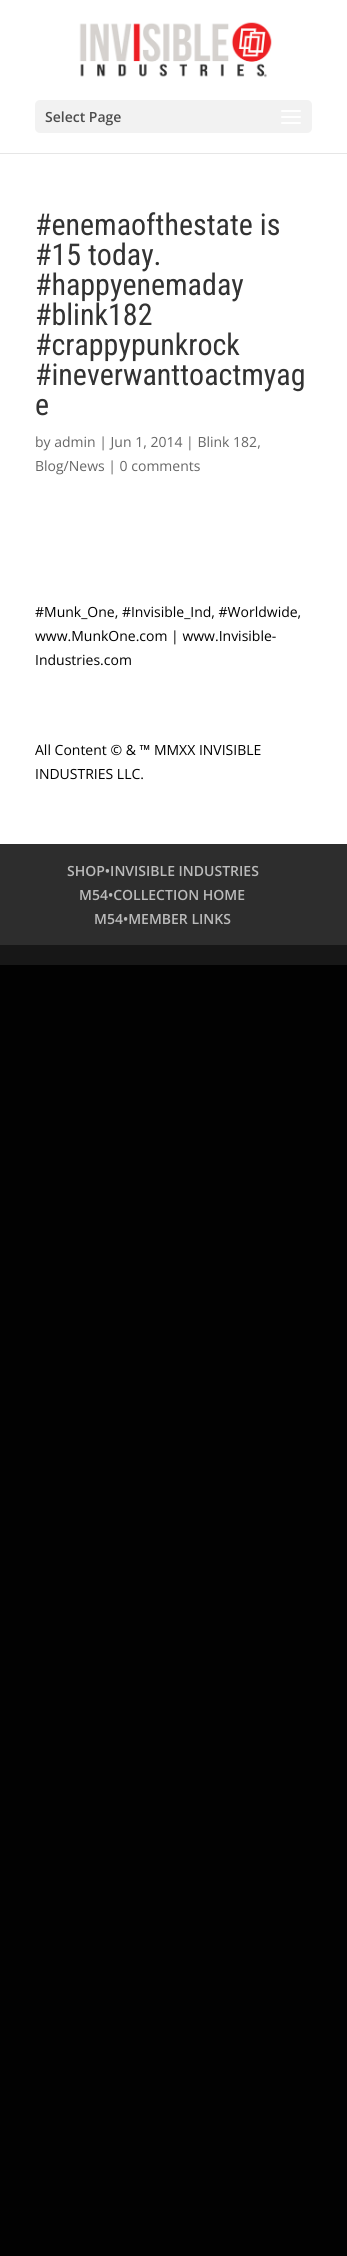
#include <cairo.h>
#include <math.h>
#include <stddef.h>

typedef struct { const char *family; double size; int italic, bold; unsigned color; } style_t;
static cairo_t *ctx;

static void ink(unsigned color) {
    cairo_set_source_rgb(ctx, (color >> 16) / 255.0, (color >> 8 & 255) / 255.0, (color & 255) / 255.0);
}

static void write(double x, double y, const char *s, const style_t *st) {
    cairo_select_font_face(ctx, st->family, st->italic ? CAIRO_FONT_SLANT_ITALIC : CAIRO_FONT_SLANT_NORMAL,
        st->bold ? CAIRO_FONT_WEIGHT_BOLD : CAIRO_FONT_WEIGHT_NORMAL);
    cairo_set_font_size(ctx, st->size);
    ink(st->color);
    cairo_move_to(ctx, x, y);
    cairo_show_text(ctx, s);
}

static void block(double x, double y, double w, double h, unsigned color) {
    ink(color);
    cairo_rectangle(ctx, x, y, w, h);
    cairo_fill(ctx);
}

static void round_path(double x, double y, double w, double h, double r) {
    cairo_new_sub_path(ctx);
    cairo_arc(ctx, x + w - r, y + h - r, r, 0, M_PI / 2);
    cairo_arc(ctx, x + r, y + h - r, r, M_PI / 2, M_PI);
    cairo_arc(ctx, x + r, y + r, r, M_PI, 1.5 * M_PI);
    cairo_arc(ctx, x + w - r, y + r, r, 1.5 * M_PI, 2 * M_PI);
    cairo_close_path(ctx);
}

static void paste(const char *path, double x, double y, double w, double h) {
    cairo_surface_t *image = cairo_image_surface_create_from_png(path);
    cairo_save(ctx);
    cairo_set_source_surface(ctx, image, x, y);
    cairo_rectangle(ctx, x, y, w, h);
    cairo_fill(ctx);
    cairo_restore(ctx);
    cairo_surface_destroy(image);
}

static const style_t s1 = {"Open Sans SemiBold", 14, 0, 0, 0x4c4c4c};
static const style_t s2 = {"Roboto Condensed", 30, 0, 0, 0x333333};
static const style_t s3 = {"Open Sans", 14, 0, 0, 0x666666};
static const style_t s4 = {"Open Sans", 14, 0, 0, 0x000000};
static const style_t s5 = {"Open Sans SemiBold", 14, 0, 0, 0xbbbbbb};

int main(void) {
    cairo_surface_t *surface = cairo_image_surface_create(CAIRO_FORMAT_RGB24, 347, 2256);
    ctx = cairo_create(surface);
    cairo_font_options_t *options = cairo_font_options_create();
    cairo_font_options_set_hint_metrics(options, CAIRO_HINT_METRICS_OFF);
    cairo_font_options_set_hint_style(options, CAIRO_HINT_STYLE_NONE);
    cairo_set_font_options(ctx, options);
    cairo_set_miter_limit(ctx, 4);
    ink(0x020202);
    cairo_paint(ctx);
    block(0, 153, 347, 1, 0xe6e6e6);
    block(0, 0, 347, 153, 0xffffff);
    paste("pic1.png", 79, 22, 193, 56);
    ink(0xf2f2f2);
    round_path(35, 100, 277, 33, 5);
    cairo_fill(ctx);
    write(45, 122, "Select Page", &s1);
    paste("pic2.png", 281, 110, 20, 14);
    block(0, 154, 347, 690, 0xffffff);
    write(35, 235, "#enemaofthestate is", &s2);
    write(35, 265, "#15 today.", &s2);
    write(35, 295, "#happyenemaday", &s2);
    write(35, 325, "#blink182", &s2);
    write(35, 355, "#crappypunkrock", &s2);
    write(35, 385, "#ineverwanttoactmyag", &s2);
    write(35, 415, "e", &s2);
    write(35, 447, "by admin | Jun 1, 2014 | Blink 182,", &s3);
    write(35, 471, "Blog/News | 0 comments", &s3);
    write(35, 617, "#Munk_One, #Invisible_Ind, #Worldwide,", &s4);
    write(35, 641, "www.MunkOne.com | www.Invisible-", &s4);
    write(35, 665, "Industries.com", &s4);
    write(35, 755, "All Content © & ™ MMXX INVISIBLE", &s4);
    write(35, 779, "INDUSTRIES LLC.", &s4);
    block(0, 844, 347, 101, 0x2d2d2d);
    write(67, 876, "SHOP•INVISIBLE INDUSTRIES", &s5);
    write(79, 900, "M54•COLLECTION HOME", &s5);
    write(94, 924, "M54•MEMBER LINKS", &s5);
    block(0, 945, 347, 20, 0x171717);
    cairo_surface_write_to_png(surface, "screenshot.png");
    cairo_font_options_destroy(options);
    cairo_destroy(ctx);
    cairo_surface_destroy(surface);
    return 0;
}
